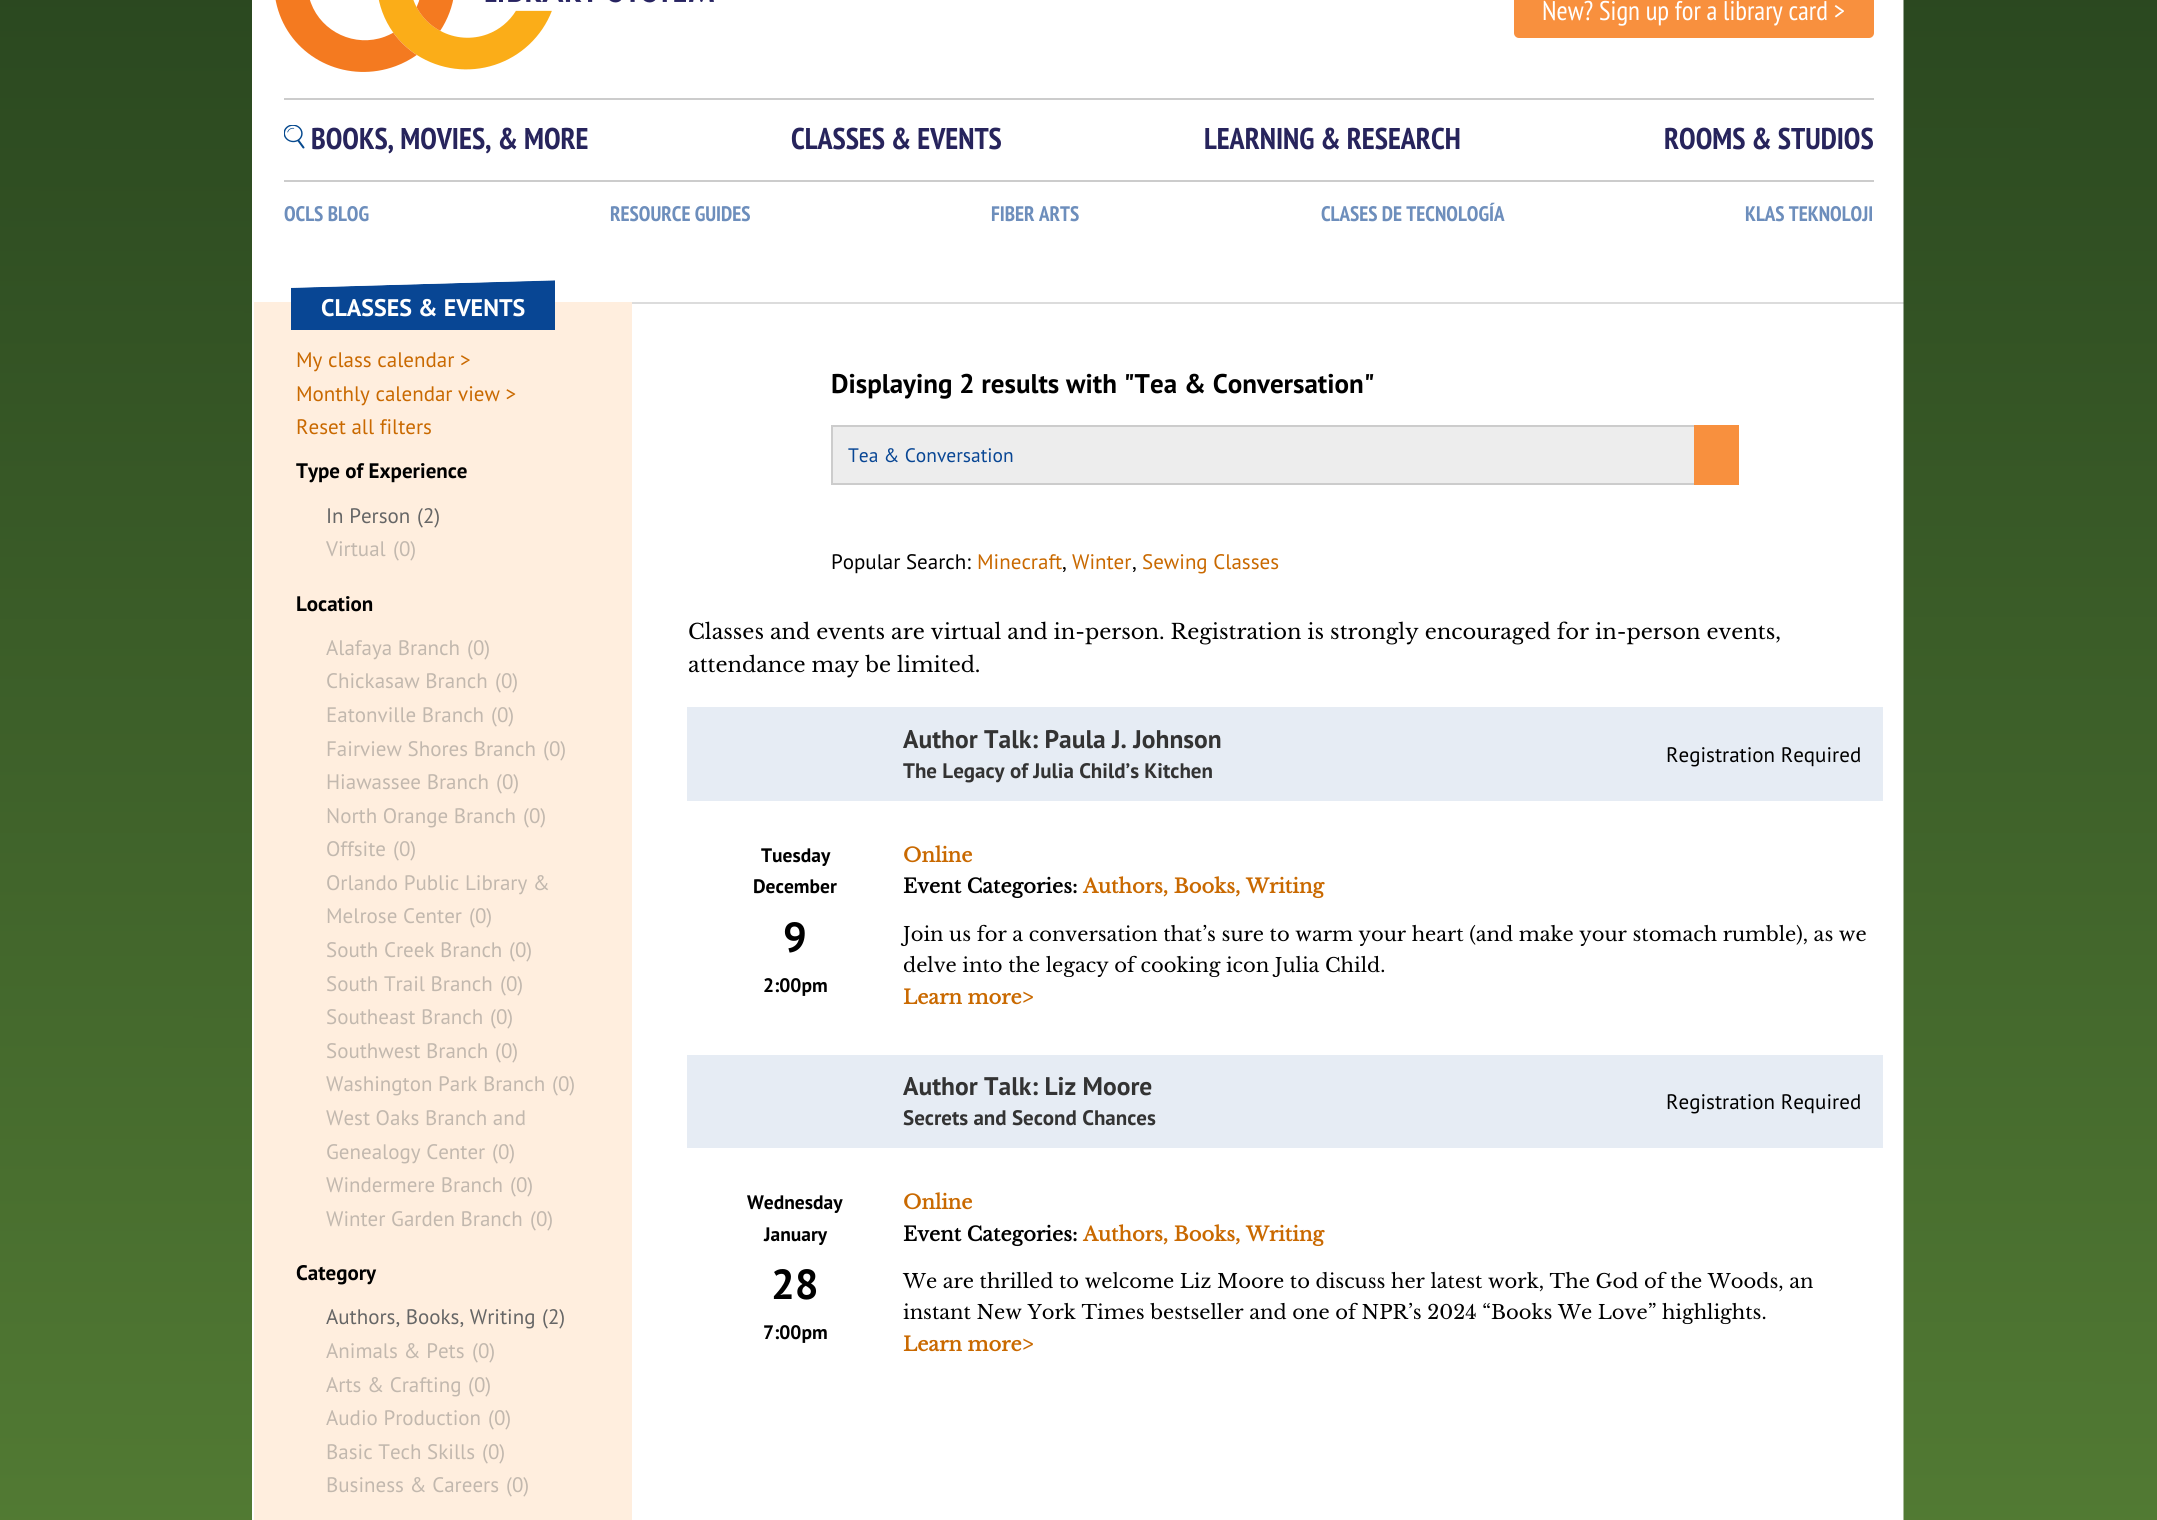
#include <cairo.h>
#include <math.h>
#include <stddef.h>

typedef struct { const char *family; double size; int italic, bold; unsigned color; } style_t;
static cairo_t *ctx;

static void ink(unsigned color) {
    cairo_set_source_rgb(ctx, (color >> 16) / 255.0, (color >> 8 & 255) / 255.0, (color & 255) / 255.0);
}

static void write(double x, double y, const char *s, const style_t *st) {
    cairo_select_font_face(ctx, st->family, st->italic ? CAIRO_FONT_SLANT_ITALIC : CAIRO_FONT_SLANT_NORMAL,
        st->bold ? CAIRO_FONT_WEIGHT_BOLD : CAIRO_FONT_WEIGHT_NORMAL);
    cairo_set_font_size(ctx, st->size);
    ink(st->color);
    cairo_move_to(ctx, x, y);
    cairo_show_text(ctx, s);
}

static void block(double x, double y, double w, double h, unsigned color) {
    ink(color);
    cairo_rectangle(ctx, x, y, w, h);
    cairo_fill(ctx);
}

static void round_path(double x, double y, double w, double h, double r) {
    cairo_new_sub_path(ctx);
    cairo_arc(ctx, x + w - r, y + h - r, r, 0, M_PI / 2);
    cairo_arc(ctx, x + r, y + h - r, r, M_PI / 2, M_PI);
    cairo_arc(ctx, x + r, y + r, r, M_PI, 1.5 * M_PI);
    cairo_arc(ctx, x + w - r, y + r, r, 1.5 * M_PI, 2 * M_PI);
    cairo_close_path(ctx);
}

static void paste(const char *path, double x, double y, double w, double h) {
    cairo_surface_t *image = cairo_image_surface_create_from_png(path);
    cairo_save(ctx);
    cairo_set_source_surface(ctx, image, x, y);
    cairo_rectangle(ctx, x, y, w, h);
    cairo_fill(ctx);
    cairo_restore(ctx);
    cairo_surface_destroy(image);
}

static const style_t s1 = {"PT Sans Narrow", 27, 0, 0, 0xffffff};
static const style_t s2 = {"PT Sans Narrow", 30, 0, 1, 0x27245c};
static const style_t s3 = {"PT Sans Narrow", 21, 0, 1, 0x6d8ebc};
static const style_t s4 = {"PT Sans", 24, 0, 1, 0xffffff};
static const style_t s5 = {"PT Sans", 21, 0, 0, 0xc96900};
static const style_t s6 = {"PT Sans", 21, 0, 1, 0x000000};
static const style_t s7 = {"PT Sans", 21, 0, 0, 0x666666};
static const style_t s8 = {"PT Sans", 21, 0, 0, 0xc2b8ae};
static const style_t s9 = {"PT Sans", 27, 0, 1, 0x000000};
static const style_t s10 = {"PT Sans", 19.5, 0, 0, 0x084694};
static const style_t s11 = {"PT Sans", 21, 0, 0, 0x000000};
static const style_t s12 = {"Libre Baskerville", 21, 0, 0, 0x000000};
static const style_t s13 = {"PT Sans", 25.5, 0, 1, 0x333333};
static const style_t s14 = {"PT Sans", 21, 0, 1, 0x333333};
static const style_t s15 = {"PT Sans", 19.5, 0, 1, 0x000000};
static const style_t s16 = {"PT Sans", 42, 0, 1, 0x000000};
static const style_t s17 = {"Libre Baskerville", 19.5, 0, 1, 0xc96900};
static const style_t s18 = {"Libre Baskerville", 19.5, 0, 1, 0x000000};
static const style_t s19 = {"Libre Baskerville", 19.5, 0, 0, 0x000000};

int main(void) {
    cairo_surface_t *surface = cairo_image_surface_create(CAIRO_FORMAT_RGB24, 2157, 1520);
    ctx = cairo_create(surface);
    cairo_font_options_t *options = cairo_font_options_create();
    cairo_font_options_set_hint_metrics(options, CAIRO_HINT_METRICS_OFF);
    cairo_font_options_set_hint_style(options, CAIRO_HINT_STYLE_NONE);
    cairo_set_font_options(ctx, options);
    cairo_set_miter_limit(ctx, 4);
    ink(0xffffff);
    cairo_paint(ctx);
    paste("pic1.png", 0, 0, 252, 1520);
    paste("pic2.png", 275, 0, 439, 72);
    ink(0xf8903e);
    round_path(1514, -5, 360, 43, 5);
    cairo_fill(ctx);
    write(1542, 20, "New? Sign up for a library card >", &s1);
    block(284, 98, 1590, 2, 0xcccccc);
    block(284, 180, 1590, 2, 0xcccccc);
    paste("pic3.png", 284, 125, 21, 24);
    write(311, 149, "BOOKS, MOVIES, & MORE", &s2);
    write(791, 149, "CLASSES & EVENTS", &s2);
    write(1204, 149, "LEARNING & RESEARCH", &s2);
    write(1664, 149, "ROOMS & STUDIOS", &s2);
    write(284, 221, "OCLS BLOG", &s3);
    write(610, 221, "RESOURCE GUIDES", &s3);
    write(991, 221, "FIBER ARTS", &s3);
    write(1321, 221, "CLASES DE TECNOLOGÍA", &s3);
    write(1745, 221, "KLAS TEKNOLOJI", &s3);
    block(632, 302, 1272, 2, 0xdcdcdc);
    paste("pic4.png", 1903, 0, 254, 1520);
    block(254, 302, 378, 1218, 0xffeede);
    block(291, 280, 264, 50, 0x084694);
    cairo_save(ctx);
    cairo_rectangle(ctx, 291, 273, 264, 57);
    cairo_clip(ctx);
    ink(0xffffff);
    cairo_new_path(ctx);
    cairo_move_to(ctx, 288, 231);
    cairo_line_to(ctx, 558, 223);
    cairo_line_to(ctx, 558, 280);
    cairo_line_to(ctx, 288, 288);
    cairo_close_path(ctx);
    cairo_fill(ctx);
    cairo_new_path(ctx);
    cairo_move_to(ctx, 296, 238);
    cairo_line_to(ctx, 550.5, 231);
    cairo_line_to(ctx, 550.5, 273);
    cairo_line_to(ctx, 296, 280);
    cairo_close_path(ctx);
    cairo_set_line_width(ctx, 15);
    cairo_stroke(ctx);
    cairo_restore(ctx);
    write(321, 316, "CLASSES & EVENTS", &s4);
    write(296, 367, "My class calendar >", &s5);
    write(296, 401, "Monthly calendar view >", &s5);
    write(296, 434, "Reset all filters", &s5);
    write(296, 478, "Type of Experience", &s6);
    write(326, 523, "In Person", &s7);
    write(417, 523, "(2)", &s7);
    write(326, 556, "Virtual", &s8);
    write(393, 556, "(0)", &s8);
    write(296, 611, "Location", &s6);
    write(326, 655, "Alafaya Branch", &s8);
    write(467, 655, "(0)", &s8);
    write(326, 688, "Chickasaw Branch", &s8);
    write(495, 688, "(0)", &s8);
    write(326, 722, "Eatonville Branch", &s8);
    write(491, 722, "(0)", &s8);
    write(326, 756, "Fairview Shores Branch", &s8);
    write(543, 756, "(0)", &s8);
    write(326, 789, "Hiawassee Branch", &s8);
    write(496, 789, "(0)", &s8);
    write(326, 823, "North Orange Branch", &s8);
    write(523, 823, "(0)", &s8);
    write(326, 856, "Offsite", &s8);
    write(393, 856, "(0)", &s8);
    write(326, 890, "Orlando Public Library &", &s8);
    write(326, 923, "Melrose Center", &s8);
    write(469, 923, "(0)", &s8);
    write(326, 957, "South Creek Branch", &s8);
    write(509, 957, "(0)", &s8);
    write(326, 991, "South Trail Branch", &s8);
    write(500, 991, "(0)", &s8);
    write(326, 1024, "Southeast Branch", &s8);
    write(490, 1024, "(0)", &s8);
    write(326, 1058, "Southwest Branch", &s8);
    write(495, 1058, "(0)", &s8);
    write(326, 1091, "Washington Park Branch", &s8);
    write(552, 1091, "(0)", &s8);
    write(326, 1125, "West Oaks Branch and", &s8);
    write(326, 1159, "Genealogy Center", &s8);
    write(492, 1159, "(0)", &s8);
    write(326, 1192, "Windermere Branch", &s8);
    write(510, 1192, "(0)", &s8);
    write(326, 1226, "Winter Garden Branch", &s8);
    write(530, 1226, "(0)", &s8);
    write(296, 1280, "Category", &s6);
    write(326, 1324, "Authors, Books, Writing", &s7);
    write(542, 1324, "(2)", &s7);
    write(326, 1358, "Animals & Pets", &s8);
    write(472, 1358, "(0)", &s8);
    write(326, 1392, "Arts & Crafting", &s8);
    write(468, 1392, "(0)", &s8);
    write(326, 1425, "Audio Production", &s8);
    write(488, 1425, "(0)", &s8);
    write(326, 1459, "Basic Tech Skills", &s8);
    write(482, 1459, "(0)", &s8);
    write(326, 1492, "Business & Careers", &s8);
    write(506, 1492, "(0)", &s8);
    write(831, 393, "Displaying 2 results with \"Tea & Conversation\"", &s9);
    block(833, 427, 861, 56, 0xededed);
    cairo_rectangle(ctx, 832, 426, 906, 58);
    ink(0xcccccc);
    cairo_stroke(ctx);
    write(848, 462, "Tea & Conversation", &s10);
    block(1694, 425, 45, 60, 0xf8903e);
    write(831, 569, "Popular Search:", &s11);
    write(977, 569, "Minecraft", &s5);
    write(1062, 569, ",", &s11);
    write(1072, 569, "Winter", &s5);
    write(1132, 569, ",", &s11);
    write(1142, 569, "Sewing Classes", &s5);
    write(688, 639, "Classes and events are virtual and in-person. Registration is strongly encouraged for in-person events,", &s12);
    write(688, 672, "attendance may be limited.", &s12);
    block(687, 707, 1196, 94, 0xe6ecf4);
    write(903, 748, "Author Talk: Paula J. Johnson", &s13);
    write(903, 778, "The Legacy of Julia Child’s Kitchen", &s14);
    write(1666, 762, "Registration Required", &s11);
    write(761, 862, "Tuesday", &s15);
    write(753, 893, "December", &s15);
    write(783, 952, "9", &s16);
    write(763, 992, "2:00pm", &s15);
    write(903, 862, "Online", &s17);
    write(903, 893, "Event Categories:", &s18);
    write(1083, 893, "Authors, Books, Writing", &s17);
    write(903, 941, "Join us for a conversation that’s sure to warm your heart (and make your stomach rumble), as we", &s19);
    write(903, 972, "delve into the legacy of cooking icon Julia Child.", &s19);
    write(903, 1004, "Learn more>", &s17);
    block(687, 1055, 1196, 93, 0xe6ecf4);
    write(903, 1095, "Author Talk: Liz Moore", &s13);
    write(903, 1125, "Secrets and Second Chances", &s14);
    write(1666, 1109, "Registration Required", &s11);
    write(747, 1209, "Wednesday", &s15);
    write(764, 1241, "January", &s15);
    write(771, 1299, "28", &s16);
    write(763, 1339, "7:00pm", &s15);
    write(903, 1209, "Online", &s17);
    write(903, 1241, "Event Categories:", &s18);
    write(1083, 1241, "Authors, Books, Writing", &s17);
    write(903, 1288, "We are thrilled to welcome Liz Moore to discuss her latest work, The God of the Woods, an", &s19);
    write(903, 1319, "instant New York Times bestseller and one of NPR’s 2024 “Books We Love” highlights.", &s19);
    write(903, 1351, "Learn more>", &s17);
    cairo_surface_write_to_png(surface, "screenshot.png");
    cairo_font_options_destroy(options);
    cairo_destroy(ctx);
    cairo_surface_destroy(surface);
    return 0;
}
